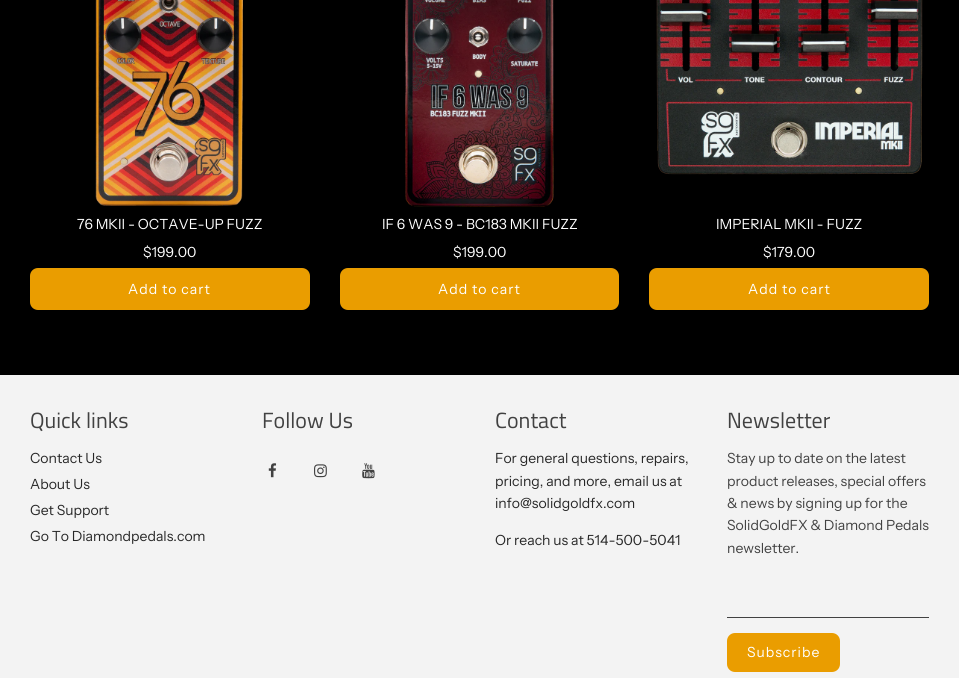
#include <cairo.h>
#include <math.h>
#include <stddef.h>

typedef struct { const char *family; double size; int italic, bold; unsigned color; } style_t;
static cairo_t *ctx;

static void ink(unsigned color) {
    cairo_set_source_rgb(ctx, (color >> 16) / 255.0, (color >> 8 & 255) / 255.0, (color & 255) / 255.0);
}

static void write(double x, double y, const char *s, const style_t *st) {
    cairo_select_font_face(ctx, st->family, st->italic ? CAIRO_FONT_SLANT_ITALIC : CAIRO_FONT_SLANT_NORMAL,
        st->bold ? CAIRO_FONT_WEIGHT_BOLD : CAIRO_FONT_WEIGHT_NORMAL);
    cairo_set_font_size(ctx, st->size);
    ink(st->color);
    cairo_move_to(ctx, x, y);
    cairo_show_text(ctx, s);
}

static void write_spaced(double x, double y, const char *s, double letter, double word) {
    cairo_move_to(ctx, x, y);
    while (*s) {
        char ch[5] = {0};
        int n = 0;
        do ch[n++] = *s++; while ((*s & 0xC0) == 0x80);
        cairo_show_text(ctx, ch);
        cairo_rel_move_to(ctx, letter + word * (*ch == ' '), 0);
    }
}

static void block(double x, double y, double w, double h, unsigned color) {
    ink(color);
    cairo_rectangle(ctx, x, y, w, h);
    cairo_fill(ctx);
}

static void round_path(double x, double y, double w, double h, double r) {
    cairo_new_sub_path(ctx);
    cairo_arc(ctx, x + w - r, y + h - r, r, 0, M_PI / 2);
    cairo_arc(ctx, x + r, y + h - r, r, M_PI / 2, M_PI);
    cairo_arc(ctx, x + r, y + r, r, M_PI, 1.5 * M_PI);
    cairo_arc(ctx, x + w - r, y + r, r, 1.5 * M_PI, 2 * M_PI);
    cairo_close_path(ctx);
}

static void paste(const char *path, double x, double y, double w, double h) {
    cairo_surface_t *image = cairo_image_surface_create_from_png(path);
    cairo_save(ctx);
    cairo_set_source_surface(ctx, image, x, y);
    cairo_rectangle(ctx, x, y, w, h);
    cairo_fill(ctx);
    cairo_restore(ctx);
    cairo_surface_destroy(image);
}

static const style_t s1 = {"Instrument Sans", 14, 0, 0, 0xffffff};
static const style_t s2 = {"Titillium Web", 22, 0, 0, 0x414141};
static const style_t s3 = {"Instrument Sans", 14, 0, 0, 0x272727};
static const style_t s4 = {"Instrument Sans", 14, 0, 0, 0x414141};

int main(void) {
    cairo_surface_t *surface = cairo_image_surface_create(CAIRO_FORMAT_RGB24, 959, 678);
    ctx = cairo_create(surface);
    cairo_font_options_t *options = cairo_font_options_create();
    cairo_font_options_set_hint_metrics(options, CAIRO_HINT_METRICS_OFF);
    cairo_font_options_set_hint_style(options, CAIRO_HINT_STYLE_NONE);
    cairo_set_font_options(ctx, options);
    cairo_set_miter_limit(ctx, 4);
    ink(0x000000);
    cairo_paint(ctx);
    paste("pic1.png", 95, 0, 148, 206);
    write(77, 229, "76 MKII - OCTAVE-UP FUZZ", &s1);
    write(143, 257, "$199.00", &s1);
    ink(0xea9d00);
    round_path(30, 268, 280, 42, 8);
    cairo_fill(ctx);
    ink(0xffffff);
    write_spaced(128, 294, "Add to cart", 1, 0);
    paste("pic2.png", 405, 0, 149, 207);
    write(382, 229, "IF 6 WAS 9 - BC183 MKII FUZZ", &s1);
    write(453, 257, "$199.00", &s1);
    ink(0xea9d00);
    round_path(340, 268, 279, 42, 8);
    cairo_fill(ctx);
    ink(0xffffff);
    write_spaced(438, 294, "Add to cart", 1, 0);
    paste("pic3.png", 656, 0, 267, 175);
    write(716, 229, "IMPERIAL MKII - FUZZ", &s1);
    write(763, 257, "$179.00", &s1);
    ink(0xea9d00);
    round_path(649, 268, 280, 42, 8);
    cairo_fill(ctx);
    ink(0xffffff);
    write_spaced(748, 294, "Add to cart", 1, 0);
    block(0, 375, 959, 303, 0xf3f3f3);
    write(30, 428, "Quick links", &s2);
    write(30, 463, "Contact Us", &s3);
    write(30, 489, "About Us", &s3);
    write(30, 515, "Get Support", &s3);
    write(30, 541, "Go To Diamondpedals.com", &s3);
    write(262, 428, "Follow Us", &s2);
    paste("pic4.png", 268, 463, 9, 15);
    paste("pic5.png", 314, 464, 13, 14);
    paste("pic6.png", 362, 463, 13, 16);
    write(495, 428, "Contact", &s2);
    write(495, 463, "For general questions, repairs,", &s3);
    write(495, 486, "pricing, and more, email us at", &s3);
    write(495, 508, "info@solidgoldfx.com", &s3);
    write(495, 545, "Or reach us at 514-500-5041", &s3);
    write(727, 428, "Newsletter", &s2);
    write(727, 463, "Stay up to date on the latest", &s4);
    write(727, 486, "product releases, special offers", &s4);
    write(727, 508, "& news by signing up for the", &s4);
    write(727, 530, "SolidGoldFX & Diamond Pedals", &s4);
    write(727, 553, "newsletter.", &s4);
    block(727, 617, 202, 1, 0x414141);
    ink(0xea9d00);
    round_path(727, 633, 113, 39, 8);
    cairo_fill(ctx);
    ink(0xffffff);
    write_spaced(747, 657, "Subscribe", 1, 0);
    cairo_surface_write_to_png(surface, "screenshot.png");
    cairo_font_options_destroy(options);
    cairo_destroy(ctx);
    cairo_surface_destroy(surface);
    return 0;
}
